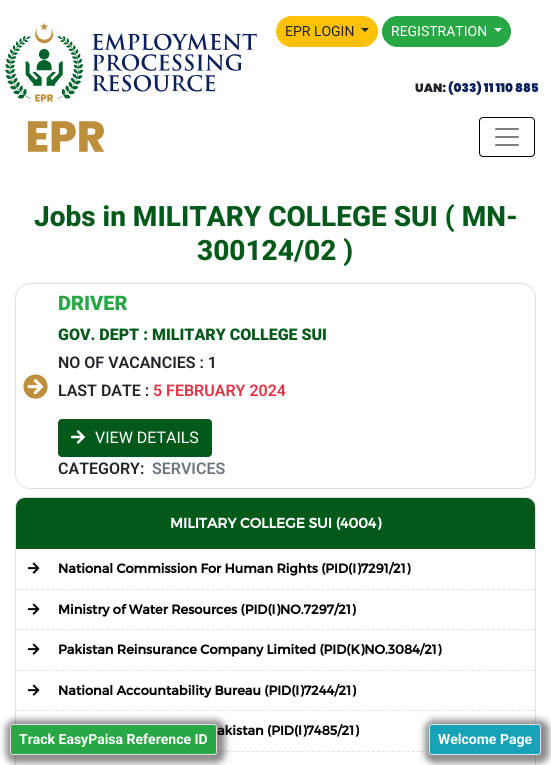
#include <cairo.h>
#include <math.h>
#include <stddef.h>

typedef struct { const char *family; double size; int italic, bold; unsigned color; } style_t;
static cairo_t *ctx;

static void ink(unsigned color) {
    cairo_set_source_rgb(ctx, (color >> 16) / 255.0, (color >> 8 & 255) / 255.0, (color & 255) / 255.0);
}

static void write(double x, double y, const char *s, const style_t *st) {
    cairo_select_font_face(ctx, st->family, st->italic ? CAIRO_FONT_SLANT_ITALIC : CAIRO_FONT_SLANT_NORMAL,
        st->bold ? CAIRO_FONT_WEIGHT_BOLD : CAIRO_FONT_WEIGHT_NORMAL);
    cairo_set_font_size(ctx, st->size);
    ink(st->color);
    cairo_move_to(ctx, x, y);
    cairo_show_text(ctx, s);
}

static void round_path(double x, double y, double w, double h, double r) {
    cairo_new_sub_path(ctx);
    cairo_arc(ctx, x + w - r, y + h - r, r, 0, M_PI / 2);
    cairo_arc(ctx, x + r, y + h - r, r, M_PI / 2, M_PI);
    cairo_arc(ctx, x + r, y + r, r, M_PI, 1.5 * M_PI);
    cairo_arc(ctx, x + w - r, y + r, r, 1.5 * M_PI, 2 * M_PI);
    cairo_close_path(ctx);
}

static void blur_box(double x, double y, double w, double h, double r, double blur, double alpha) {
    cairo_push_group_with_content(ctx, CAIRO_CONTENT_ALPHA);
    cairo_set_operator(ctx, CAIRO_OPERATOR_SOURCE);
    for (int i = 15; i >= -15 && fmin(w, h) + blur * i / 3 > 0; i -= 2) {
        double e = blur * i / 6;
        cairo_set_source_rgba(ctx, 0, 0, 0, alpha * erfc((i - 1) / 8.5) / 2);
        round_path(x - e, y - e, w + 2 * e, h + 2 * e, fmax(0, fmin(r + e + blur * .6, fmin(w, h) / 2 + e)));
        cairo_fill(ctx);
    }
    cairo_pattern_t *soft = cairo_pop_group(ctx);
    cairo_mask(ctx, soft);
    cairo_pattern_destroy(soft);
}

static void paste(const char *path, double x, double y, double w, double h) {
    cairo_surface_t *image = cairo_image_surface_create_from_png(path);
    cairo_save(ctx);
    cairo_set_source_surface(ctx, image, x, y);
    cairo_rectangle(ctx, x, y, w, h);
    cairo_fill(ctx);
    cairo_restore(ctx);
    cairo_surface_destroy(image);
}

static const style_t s1 = {"Roboto", 14, 0, 0, 0x212529};
static const style_t s2 = {"Roboto", 14, 0, 0, 0xffffff};
static const style_t s3 = {"Poppins Black", 12, 0, 0, 0x212529};
static const style_t s4 = {"Poppins Black", 12, 0, 0, 0x0b205b};
static const style_t s5 = {"Roboto ExtraBold", 28, 0, 0, 0x025919};
static const style_t s6 = {"Roboto Black", 20, 0, 0, 0x28a745};
static const style_t s7 = {"Roboto Black", 16, 0, 0, 0x025919};
static const style_t s8 = {"Roboto SemiBold", 16, 0, 0, 0x212529};
static const style_t s9 = {"Roboto SemiBold", 16, 0, 0, 0xdc3545};
static const style_t s10 = {"Roboto", 16, 0, 0, 0xffffff};
static const style_t s11 = {"Roboto SemiBold", 16, 0, 0, 0x6c757d};
static const style_t s12 = {"Montserrat", 14, 0, 1, 0xffffff};
static const style_t s13 = {"Montserrat", 13, 0, 1, 0x000000};
static const style_t s14 = {"Roboto", 14, 0, 1, 0xffffff};

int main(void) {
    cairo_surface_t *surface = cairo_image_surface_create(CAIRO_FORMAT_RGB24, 551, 765);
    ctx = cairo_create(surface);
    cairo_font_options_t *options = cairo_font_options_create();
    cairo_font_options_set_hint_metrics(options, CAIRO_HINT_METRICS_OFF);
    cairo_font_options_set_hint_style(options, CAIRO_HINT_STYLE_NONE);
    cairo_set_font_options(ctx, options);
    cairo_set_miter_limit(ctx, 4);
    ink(0xffffff);
    cairo_paint(ctx);
    paste("pic1.png", 5, 22, 252, 80);
    ink(0xffc107);
    round_path(276.5, 16.5, 101, 30, 15);
    cairo_fill_preserve(ctx);
    cairo_set_line_width(ctx, 1);
    cairo_stroke(ctx);
    write(285, 36, "EPR LOGIN", &s1);
    cairo_new_path(ctx);
    cairo_move_to(ctx, 361, 28);
    cairo_line_to(ctx, 369, 28);
    cairo_line_to(ctx, 365, 32);
    cairo_close_path(ctx);
    cairo_fill(ctx);
    ink(0x28a745);
    round_path(382.5, 16.5, 128, 30, 15);
    cairo_fill_preserve(ctx);
    cairo_stroke(ctx);
    write(391, 36, "REGISTRATION", &s2);
    cairo_new_path(ctx);
    cairo_move_to(ctx, 494, 28);
    cairo_line_to(ctx, 502, 28);
    cairo_line_to(ctx, 498, 32);
    cairo_close_path(ctx);
    cairo_fill(ctx);
    write(415, 92, "UAN:", &s3);
    write(448, 92, "(033) 11 110 885", &s4);
    paste("pic2.png", 27, 121, 77, 31);
    round_path(479.5, 117.5, 55, 39, 3.5);
    ink(0x000000);
    cairo_stroke(ctx);
    paste("pic3.png", 495, 128, 24, 18);
    write(34, 226, "Jobs in MILITARY COLLEGE SUI ( MN-", &s5);
    write(197, 260, "300124/02 )", &s5);
    round_path(15.5, 283.5, 520, 205, 14.5);
    ink(0xdfdfdf);
    cairo_stroke(ctx);
    paste("pic4.png", 23, 374, 25, 25);
    write(58, 310, "DRIVER", &s6);
    write(58, 340, "GOV. DEPT : MILITARY COLLEGE SUI", &s7);
    write(58, 368, "NO OF VACANCIES : 1", &s8);
    write(58, 396, "LAST DATE :", &s8);
    write(153, 396, "5 FEBRUARY 2024", &s9);
    ink(0x025919);
    round_path(58, 419, 154, 38, 4);
    cairo_fill(ctx);
    paste("pic5.png", 71, 430, 14, 14);
    write(95, 443, "VIEW DETAILS", &s10);
    write(58, 474, "CATEGORY:", &s8);
    write(152, 474, "SERVICES", &s11);
    round_path(15.5, 497.5, 520, 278, 9.5);
    ink(0xe0e1e2);
    cairo_stroke(ctx);
    ink(0x025919);
    cairo_new_path(ctx);
    cairo_move_to(ctx, 25, 498);
    cairo_line_to(ctx, 526, 498);
    cairo_curve_to(ctx, 531, 498, 535, 502, 535, 507);
    cairo_line_to(ctx, 535, 549);
    cairo_line_to(ctx, 16, 549);
    cairo_line_to(ctx, 16, 507);
    cairo_curve_to(ctx, 16, 502, 20, 498, 25, 498);
    cairo_close_path(ctx);
    cairo_fill(ctx);
    write(170, 528, "MILITARY COLLEGE SUI (4004)", &s12);
    cairo_new_path(ctx);
    cairo_move_to(ctx, 16, 589.5);
    cairo_line_to(ctx, 535, 589.5);
    ink(0xe0e1e2);
    cairo_set_dash(ctx, (double[]){3, 2.01}, 2, 0);
    cairo_stroke(ctx);
    paste("pic6.png", 28, 562, 12, 12);
    write(58, 573, "National Commission For Human Rights (PID(I)7291/21)", &s13);
    cairo_new_path(ctx);
    cairo_move_to(ctx, 16, 629.5);
    cairo_line_to(ctx, 535, 629.5);
    ink(0xe0e1e2);
    cairo_stroke(ctx);
    paste("pic6.png", 28, 603, 12, 12);
    write(58, 614, "Ministry of Water Resources (PID(I)NO.7297/21)", &s13);
    cairo_new_path(ctx);
    cairo_move_to(ctx, 16, 670.5);
    cairo_line_to(ctx, 535, 670.5);
    ink(0xe0e1e2);
    cairo_stroke(ctx);
    paste("pic6.png", 28, 643, 12, 12);
    write(58, 654, "Pakistan Reinsurance Company Limited (PID(K)NO.3084/21)", &s13);
    cairo_new_path(ctx);
    cairo_move_to(ctx, 16, 710.5);
    cairo_line_to(ctx, 535, 710.5);
    ink(0xe0e1e2);
    cairo_stroke(ctx);
    paste("pic6.png", 28, 684, 12, 12);
    write(58, 695, "National Accountability Bureau (PID(I)7244/21)", &s13);
    cairo_new_path(ctx);
    cairo_move_to(ctx, 16, 751.5);
    cairo_line_to(ctx, 535, 751.5);
    ink(0xe0e1e2);
    cairo_stroke(ctx);
    write(217, 735, "akistan (PID(I)7485/21)", &s13);
    ink(0x000000);
    blur_box(6, 720, 219, 43, 9, 3.5, 0.46);
    ink(0x28a745);
    round_path(10.5, 724.5, 206, 30, 2.5);
    cairo_fill_preserve(ctx);
    ink(0xdee2e6);
    cairo_set_dash(ctx, NULL, 0, 0);
    cairo_stroke(ctx);
    write(19, 744, "Track EasyPaisa Reference ID", &s14);
    ink(0x000000);
    blur_box(425, 720, 124, 43, 9, 3.5, 0.46);
    ink(0x17a2b8);
    round_path(429.5, 724.5, 111, 30, 2.5);
    cairo_fill_preserve(ctx);
    ink(0xdee2e6);
    cairo_stroke(ctx);
    write(438, 744, "Welcome Page", &s14);
    cairo_surface_write_to_png(surface, "screenshot.png");
    cairo_font_options_destroy(options);
    cairo_destroy(ctx);
    cairo_surface_destroy(surface);
    return 0;
}
